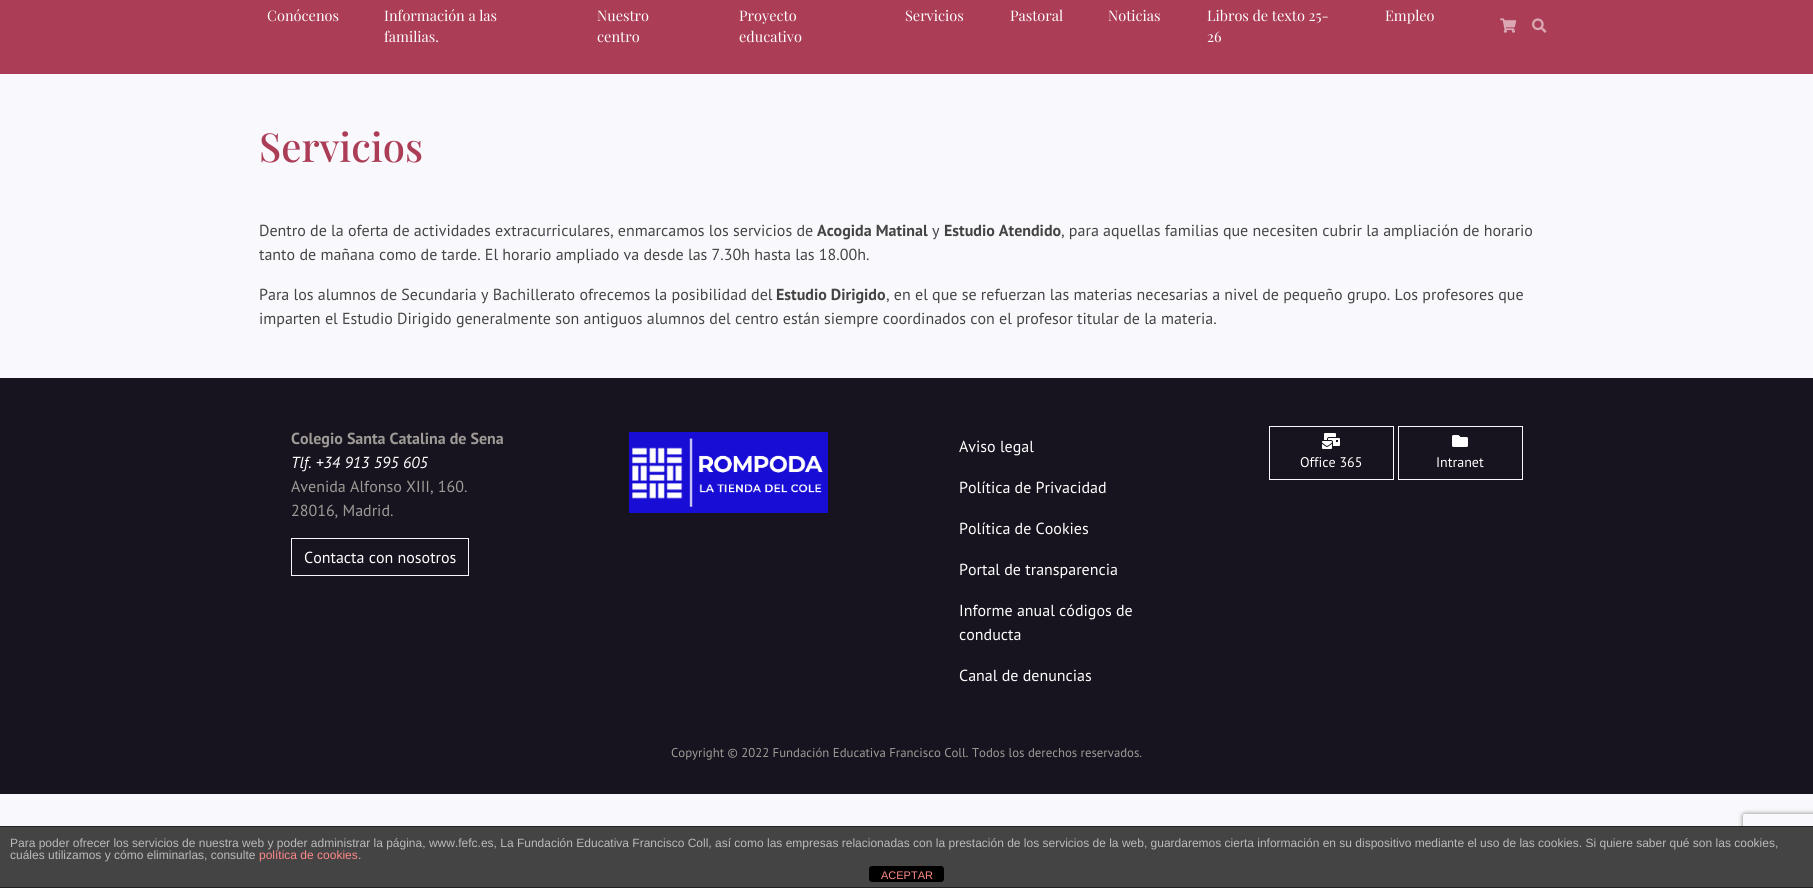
#include <cairo.h>
#include <math.h>
#include <stddef.h>

typedef struct { const char *family; double size; int italic, bold; unsigned color; } style_t;
static cairo_t *ctx;

static void ink(unsigned color) {
    cairo_set_source_rgb(ctx, (color >> 16) / 255.0, (color >> 8 & 255) / 255.0, (color & 255) / 255.0);
}

static void write(double x, double y, const char *s, const style_t *st) {
    cairo_select_font_face(ctx, st->family, st->italic ? CAIRO_FONT_SLANT_ITALIC : CAIRO_FONT_SLANT_NORMAL,
        st->bold ? CAIRO_FONT_WEIGHT_BOLD : CAIRO_FONT_WEIGHT_NORMAL);
    cairo_set_font_size(ctx, st->size);
    ink(st->color);
    cairo_move_to(ctx, x, y);
    cairo_show_text(ctx, s);
}

static void block(double x, double y, double w, double h, unsigned color) {
    ink(color);
    cairo_rectangle(ctx, x, y, w, h);
    cairo_fill(ctx);
}

static void round_path(double x, double y, double w, double h, double r) {
    cairo_new_sub_path(ctx);
    cairo_arc(ctx, x + w - r, y + h - r, r, 0, M_PI / 2);
    cairo_arc(ctx, x + r, y + h - r, r, M_PI / 2, M_PI);
    cairo_arc(ctx, x + r, y + r, r, M_PI, 1.5 * M_PI);
    cairo_arc(ctx, x + w - r, y + r, r, 1.5 * M_PI, 2 * M_PI);
    cairo_close_path(ctx);
}

static void blur_box(double x, double y, double w, double h, double r, double blur, double alpha) {
    cairo_push_group_with_content(ctx, CAIRO_CONTENT_ALPHA);
    cairo_set_operator(ctx, CAIRO_OPERATOR_SOURCE);
    for (int i = 15; i >= -15 && fmin(w, h) + blur * i / 3 > 0; i -= 2) {
        double e = blur * i / 6;
        cairo_set_source_rgba(ctx, 0, 0, 0, alpha * erfc((i - 1) / 8.5) / 2);
        round_path(x - e, y - e, w + 2 * e, h + 2 * e, fmax(0, fmin(r + e + blur * .6, fmin(w, h) / 2 + e)));
        cairo_fill(ctx);
    }
    cairo_pattern_t *soft = cairo_pop_group(ctx);
    cairo_mask(ctx, soft);
    cairo_pattern_destroy(soft);
}

static void paste(const char *path, double x, double y, double w, double h) {
    cairo_surface_t *image = cairo_image_surface_create_from_png(path);
    cairo_save(ctx);
    cairo_set_source_surface(ctx, image, x, y);
    cairo_rectangle(ctx, x, y, w, h);
    cairo_fill(ctx);
    cairo_restore(ctx);
    cairo_surface_destroy(image);
}

static const style_t s1 = {"Playfair Display", 14.5, 0, 0, 0xffffff};
static const style_t s2 = {"Playfair Display Medium", 40, 0, 0, 0xab3d56};
static const style_t s3 = {"PT Sans", 16, 0, 0, 0x444444};
static const style_t s4 = {"PT Sans", 16, 0, 1, 0x444444};
static const style_t s5 = {"PT Sans", 16, 0, 1, 0x9f9a95};
static const style_t s6 = {"PT Sans", 16, 1, 0, 0xffffff};
static const style_t s7 = {"PT Sans", 16, 0, 0, 0x9f9a95};
static const style_t s8 = {"PT Sans", 16, 0, 0, 0xffffff};
static const style_t s9 = {"PT Sans", 14, 0, 0, 0xffffff};
static const style_t s10 = {"PT Sans", 12.8, 0, 0, 0x9f9a95};
static const style_t s11 = {"Liberation Sans", 12, 0, 0, 0xbbbbbb};
static const style_t s12 = {"Liberation Sans", 12, 0, 0, 0xff8888};
static const style_t s13 = {"Liberation Sans", 11, 0, 0, 0xff8888};

int main(void) {
    cairo_surface_t *surface = cairo_image_surface_create(CAIRO_FORMAT_RGB24, 1813, 888);
    ctx = cairo_create(surface);
    cairo_font_options_t *options = cairo_font_options_create();
    cairo_font_options_set_hint_metrics(options, CAIRO_HINT_METRICS_OFF);
    cairo_font_options_set_hint_style(options, CAIRO_HINT_STYLE_NONE);
    cairo_set_font_options(ctx, options);
    cairo_set_miter_limit(ctx, 4);
    ink(0xf9f8fc);
    cairo_paint(ctx);
    block(0, 0, 1813, 74, 0xab3d56);
    write(267, 21, "Conócenos", &s1);
    write(384, 21, "Información a las", &s1);
    write(384, 42, "familias.", &s1);
    write(597, 21, "Nuestro", &s1);
    write(597, 42, "centro", &s1);
    write(739, 21, "Proyecto", &s1);
    write(739, 42, "educativo", &s1);
    write(905, 21, "Servicios", &s1);
    write(1010, 21, "Pastoral", &s1);
    write(1108, 21, "Noticias", &s1);
    write(1207, 21, "Libros de texto 25-", &s1);
    write(1207, 42, "26", &s1);
    write(1385, 21, "Empleo", &s1);
    paste("pic1.png", 1500, 18, 17, 15);
    paste("pic2.png", 1532, 18, 15, 15);
    write(259, 162, "Servicios", &s2);
    write(259, 236, "Dentro de la oferta de actividades extracurriculares, enmarcamos los servicios de", &s3);
    write(817, 236, "Acogida Matinal", &s4);
    write(932, 236, "y", &s3);
    write(944, 236, "Estudio Atendido", &s4);
    write(1061, 236, ", para aquellas familias que necesiten cubrir la ampliación de horario", &s3);
    write(259, 260, "tanto de mañana como de tarde. El horario ampliado va desde las 7.30h hasta las 18.00h.", &s3);
    write(259, 300, "Para los alumnos de Secundaria y Bachillerato ofrecemos la posibilidad del", &s3);
    write(776, 300, "Estudio Dirigido", &s4);
    write(886, 300, ", en el que se refuerzan las materias necesarias a nivel de pequeño grupo. Los profesores que", &s3);
    write(259, 324, "imparten el Estudio Dirigido generalmente son antiguos alumnos del centro están siempre coordinados con el profesor titular de la materia.", &s3);
    block(0, 378, 1813, 416, 0x17141f);
    write(291, 444, "Colegio Santa Catalina de Sena", &s5);
    write(291, 468, "Tlf. +34 913 595 605", &s6);
    write(291, 492, "Avenida Alfonso XIII, 160.", &s7);
    write(291, 516, "28016, Madrid.", &s7);
    cairo_rectangle(ctx, 291.5, 538.5, 177, 37);
    ink(0xf9f8fc);
    cairo_set_line_width(ctx, 1);
    cairo_stroke(ctx);
    write(304, 563, "Contacta con nosotros", &s8);
    paste("pic3.png", 629, 432, 199, 81);
    write(959, 452, "Aviso legal", &s8);
    write(959, 493, "Política de Privacidad", &s8);
    write(959, 534, "Política de Cookies", &s8);
    write(959, 575, "Portal de transparencia", &s8);
    write(959, 616, "Informe anual códigos de", &s8);
    write(959, 640, "conducta", &s8);
    write(959, 681, "Canal de denuncias", &s8);
    cairo_rectangle(ctx, 1269.5, 426.5, 124, 53);
    ink(0xf9f8fc);
    cairo_stroke(ctx);
    paste("pic4.png", 1322, 433, 18, 16);
    write(1300, 467, "Office 365", &s9);
    cairo_rectangle(ctx, 1398.5, 426.5, 124, 53);
    ink(0xf9f8fc);
    cairo_stroke(ctx);
    paste("pic5.png", 1452, 435, 16, 12);
    write(1436, 467, "Intranet", &s9);
    write(671, 757, "Copyright © 2022 Fundación Educativa Francisco Coll. Todos los derechos reservados.", &s10);
    cairo_save(ctx);
    cairo_set_fill_rule(ctx, CAIRO_FILL_RULE_EVEN_ODD);
    cairo_new_path(ctx);
    cairo_move_to(ctx, 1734, 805);
    cairo_line_to(ctx, 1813, 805);
    cairo_line_to(ctx, 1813, 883);
    cairo_line_to(ctx, 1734, 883);
    cairo_close_path(ctx);
    cairo_move_to(ctx, 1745, 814);
    cairo_line_to(ctx, 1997, 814);
    cairo_curve_to(ctx, 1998, 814, 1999, 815, 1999, 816);
    cairo_line_to(ctx, 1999, 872);
    cairo_curve_to(ctx, 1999, 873, 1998, 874, 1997, 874);
    cairo_line_to(ctx, 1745, 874);
    cairo_curve_to(ctx, 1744, 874, 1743, 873, 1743, 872);
    cairo_line_to(ctx, 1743, 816);
    cairo_curve_to(ctx, 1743, 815, 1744, 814, 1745, 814);
    cairo_close_path(ctx);
    cairo_clip(ctx);
    ink(0x808080);
    blur_box(1743, 814, 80, 60, 2, 2.5, 1);
    cairo_restore(ctx);
    block(0, 827, 1813, 60, 0x444444);
    block(0, 826, 1813, 1, 0x222222);
    block(0, 887, 1813, 1, 0x222222);
    write(10, 847, "Para poder ofrecer los servicios de nuestra web y poder administrar la página, www.fefc.es, La Fundación Educativa Francisco Coll, así como las empresas relacionadas con la prestación de los servicios de la web, guardaremos cierta información en su dispositivo mediante el uso de las cookies. Si quiere saber qué son las cookies,", &s11);
    write(10, 859, "cuáles utilizamos y cómo eliminarlas, consulte", &s11);
    write(259, 859, "política de cookies", &s12);
    write(358, 859, ".", &s11);
    ink(0x000000);
    round_path(869, 866, 75, 16, 3);
    cairo_fill(ctx);
    write(881, 879, "ACEPTAR", &s13);
    cairo_surface_write_to_png(surface, "screenshot.png");
    cairo_font_options_destroy(options);
    cairo_destroy(ctx);
    cairo_surface_destroy(surface);
    return 0;
}
